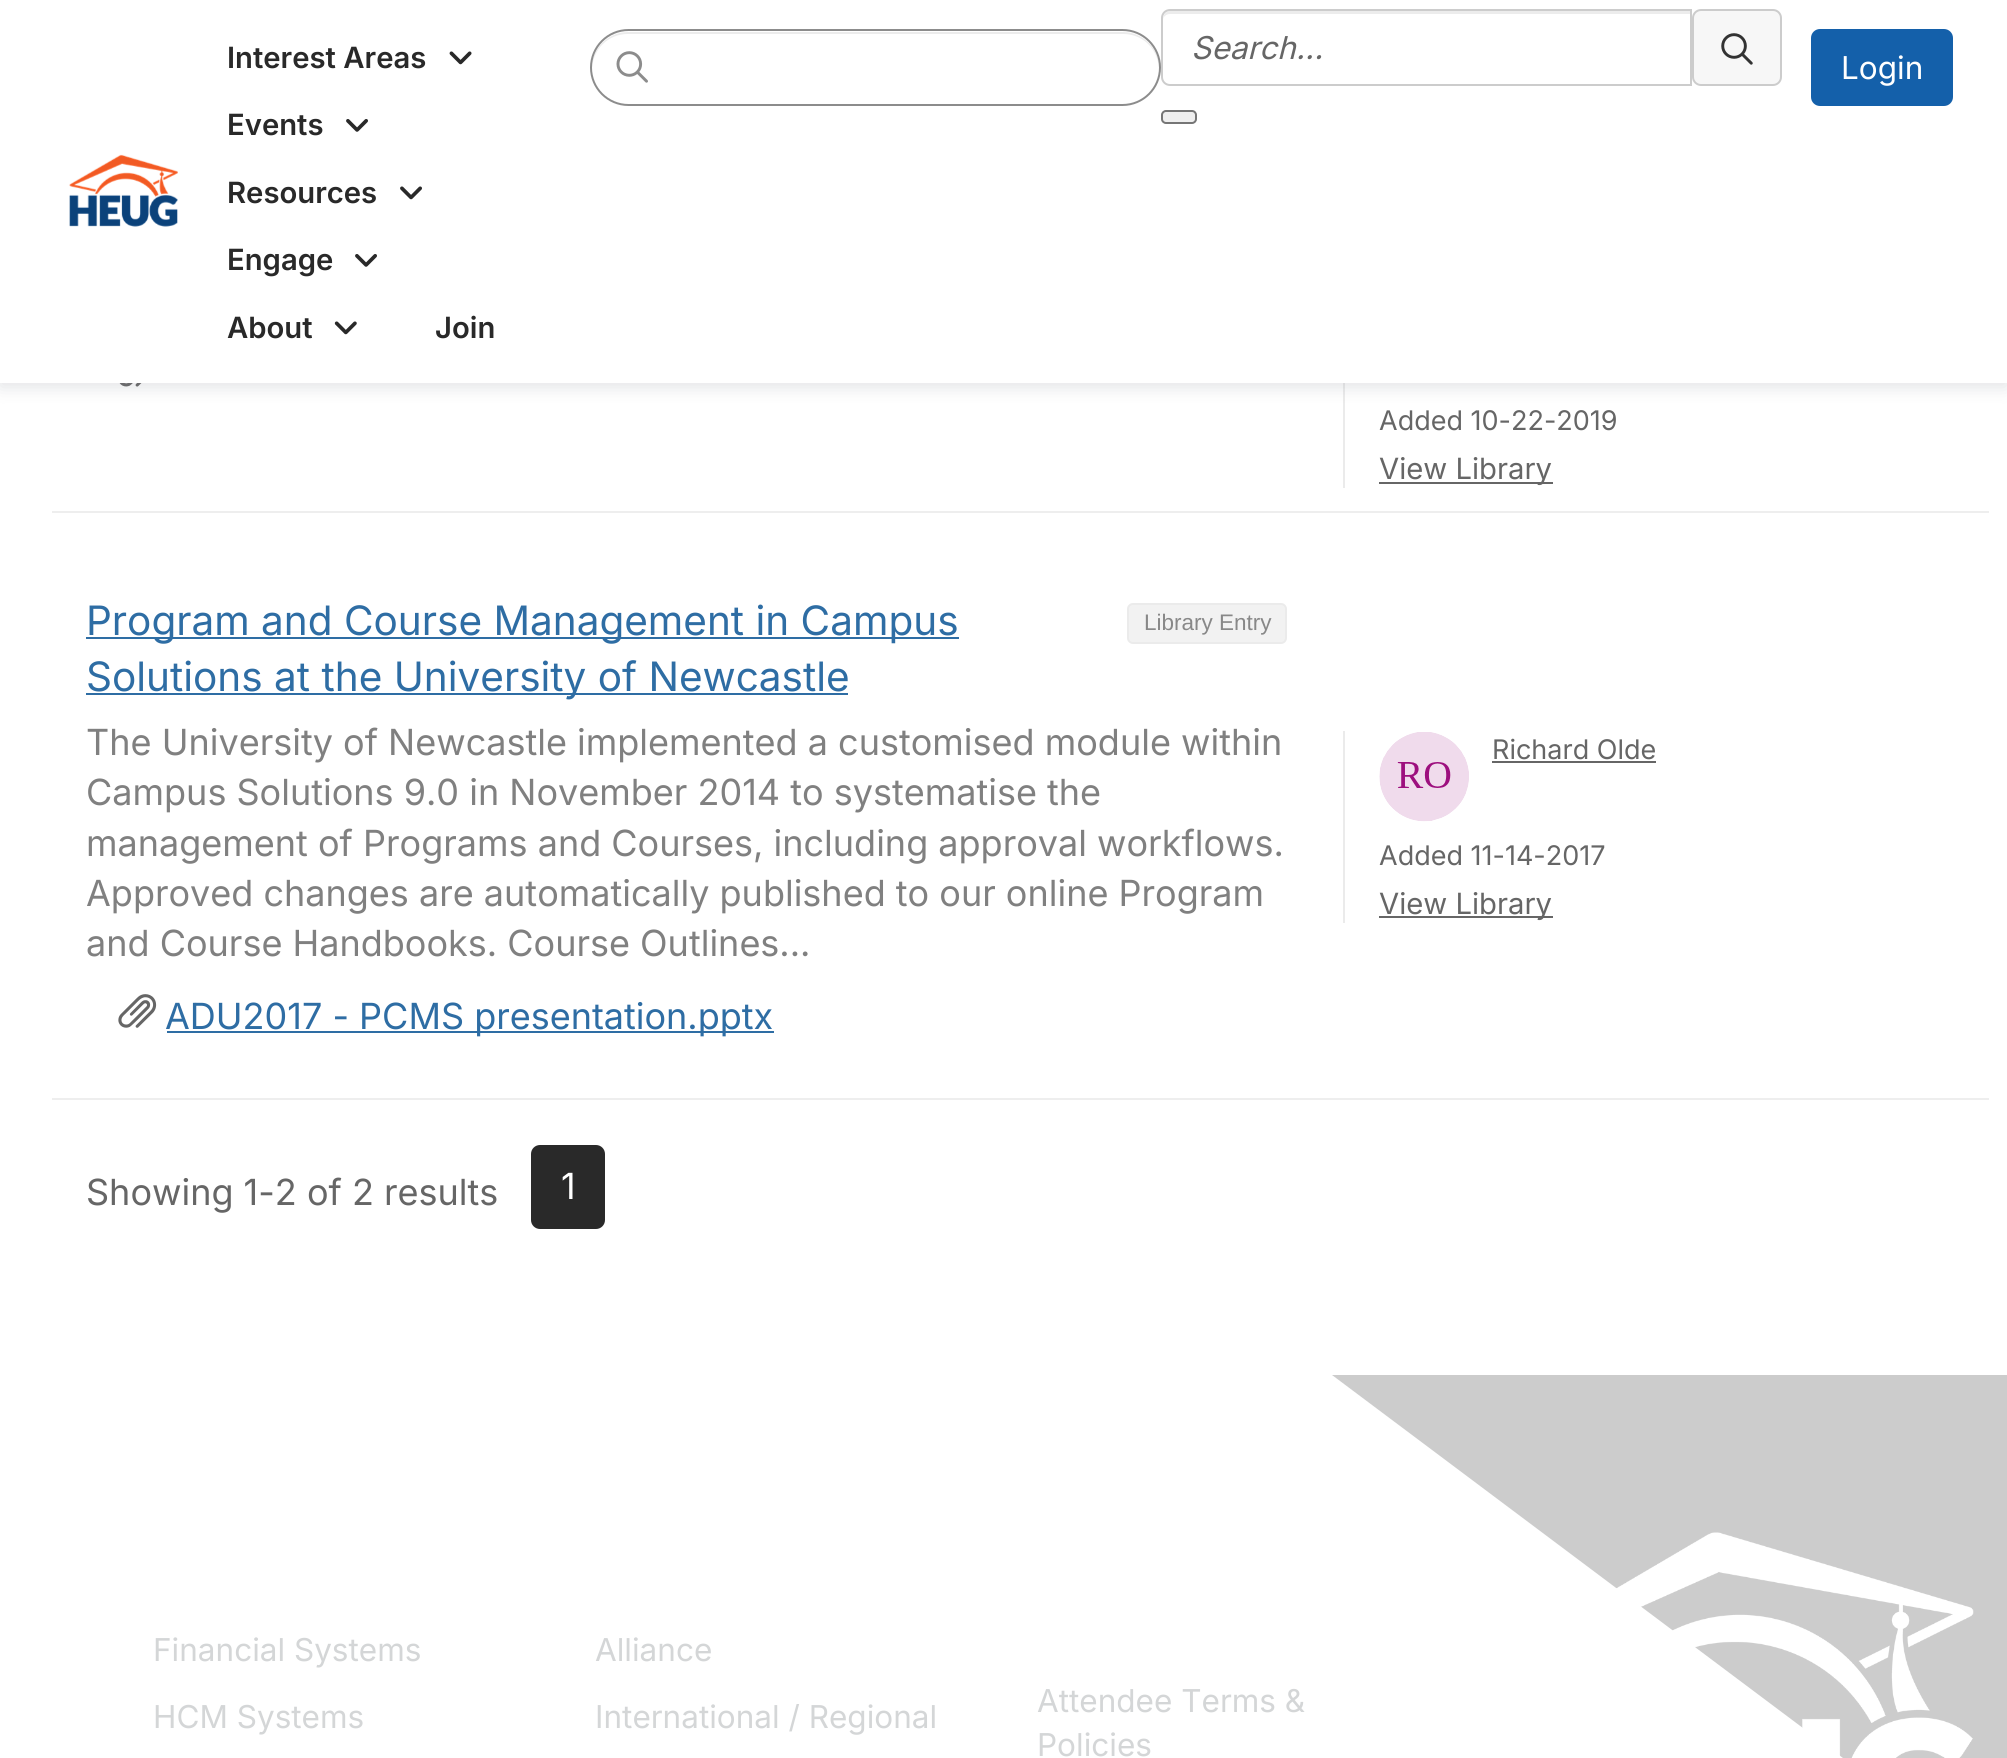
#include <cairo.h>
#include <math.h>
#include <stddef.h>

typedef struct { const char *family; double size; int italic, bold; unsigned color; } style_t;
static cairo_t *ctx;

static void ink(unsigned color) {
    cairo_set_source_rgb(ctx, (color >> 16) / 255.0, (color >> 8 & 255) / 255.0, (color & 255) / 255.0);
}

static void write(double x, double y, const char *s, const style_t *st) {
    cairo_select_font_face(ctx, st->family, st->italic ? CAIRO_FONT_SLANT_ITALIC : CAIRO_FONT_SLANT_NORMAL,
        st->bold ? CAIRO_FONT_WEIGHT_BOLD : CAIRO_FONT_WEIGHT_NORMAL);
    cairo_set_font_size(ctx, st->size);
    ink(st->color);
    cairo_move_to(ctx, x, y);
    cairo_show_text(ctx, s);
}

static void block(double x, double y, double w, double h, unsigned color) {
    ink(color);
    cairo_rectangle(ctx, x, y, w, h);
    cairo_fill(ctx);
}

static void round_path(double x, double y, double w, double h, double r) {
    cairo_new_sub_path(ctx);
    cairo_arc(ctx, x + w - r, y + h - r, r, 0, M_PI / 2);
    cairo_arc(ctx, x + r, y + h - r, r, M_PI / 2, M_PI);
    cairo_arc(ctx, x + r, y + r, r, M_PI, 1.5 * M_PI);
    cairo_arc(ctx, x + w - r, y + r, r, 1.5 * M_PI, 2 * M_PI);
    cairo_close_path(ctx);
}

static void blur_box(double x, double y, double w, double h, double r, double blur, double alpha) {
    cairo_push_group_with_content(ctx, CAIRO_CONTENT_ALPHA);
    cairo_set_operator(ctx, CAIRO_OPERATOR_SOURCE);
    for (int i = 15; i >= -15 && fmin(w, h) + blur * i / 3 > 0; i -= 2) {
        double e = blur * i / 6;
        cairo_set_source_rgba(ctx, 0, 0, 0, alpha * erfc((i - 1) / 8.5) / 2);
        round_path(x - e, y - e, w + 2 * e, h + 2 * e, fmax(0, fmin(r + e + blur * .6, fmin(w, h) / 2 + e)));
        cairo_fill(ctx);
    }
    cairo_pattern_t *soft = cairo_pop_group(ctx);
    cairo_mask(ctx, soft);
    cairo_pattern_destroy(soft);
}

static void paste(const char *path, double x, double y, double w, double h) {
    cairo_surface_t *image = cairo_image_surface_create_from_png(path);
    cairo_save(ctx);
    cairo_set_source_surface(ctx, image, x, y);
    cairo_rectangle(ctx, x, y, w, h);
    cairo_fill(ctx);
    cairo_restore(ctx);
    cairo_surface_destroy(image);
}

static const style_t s1 = {"Inter SemiBold", 29.25, 0, 0, 0x292929};
static const style_t s2 = {"Inter", 31.5, 1, 0, 0x666666};
static const style_t s3 = {"Inter", 31.5, 0, 0, 0xffffff};
static const style_t s4 = {"Inter", 27, 0, 0, 0x666666};
static const style_t s5 = {"Inter", 29.25, 0, 0, 0x666666};
static const style_t s6 = {"Inter", 40.5, 0, 0, 0x2e6da4};
static const style_t s7 = {"Liberation Sans", 22.5, 0, 0, 0x888888};
static const style_t s8 = {"Inter", 36, 0, 0, 0x808080};
static const style_t s9 = {"Inter", 36, 0, 0, 0x2e6da4};
static const style_t s10 = {"Inter", 36, 0, 0, 0x666666};
static const style_t s11 = {"Inter", 36, 0, 0, 0xffffff};
static const style_t s12 = {"Inter", 31.5, 0, 0, 0xd4d6d7};

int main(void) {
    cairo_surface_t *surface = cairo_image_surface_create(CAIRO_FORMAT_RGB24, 2007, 1758);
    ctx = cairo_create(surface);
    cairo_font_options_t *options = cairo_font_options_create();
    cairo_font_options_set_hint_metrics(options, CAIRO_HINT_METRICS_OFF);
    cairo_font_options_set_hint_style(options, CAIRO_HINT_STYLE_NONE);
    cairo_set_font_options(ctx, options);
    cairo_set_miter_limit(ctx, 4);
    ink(0xffffff);
    cairo_paint(ctx);
    paste("pic8.png", 119, 383, 23, 4);
    block(1343, 383, 2, 105, 0xebebeb);
    ink(0x838791);
    blur_box(0, 5, 2007, 382, 0, 9, 0.24);
    block(0, 0, 2007, 383, 0xffffff);
    paste("pic1.png", 69, 154, 109, 73);
    write(227, 68, "Interest Areas", &s1);
    paste("pic2.png", 449, 51, 23, 14);
    write(227, 135, "Events", &s1);
    paste("pic3.png", 346, 119, 22, 13);
    write(227, 203, "Resources", &s1);
    paste("pic4.png", 400, 186, 22, 14);
    write(227, 270, "Engage", &s1);
    paste("pic3.png", 355, 254, 22, 13);
    write(227, 338, "About", &s1);
    paste("pic5.png", 334, 321, 23, 14);
    write(435, 338, "Join", &s1);
    ink(0xececec);
    cairo_new_path(ctx);
    cairo_move_to(ctx, 628, 34);
    cairo_line_to(ctx, 1123, 34);
    cairo_curve_to(ctx, 1143, 34, 1158, 49, 1159, 69);
    cairo_curve_to(ctx, 1160, 49, 1143, 32, 1123, 32);
    cairo_line_to(ctx, 628, 32);
    cairo_curve_to(ctx, 608, 32, 591, 49, 592, 69);
    cairo_curve_to(ctx, 593, 49, 608, 34, 628, 34);
    cairo_close_path(ctx);
    cairo_fill(ctx);
    round_path(591, 30, 569, 75, 37.5);
    ink(0x8c8c8c);
    cairo_stroke(ctx);
    paste("pic6.png", 616, 51, 32, 32);
    ink(0xececec);
    cairo_new_path(ctx);
    cairo_move_to(ctx, 1170, 14);
    cairo_line_to(ctx, 1690, 14);
    cairo_line_to(ctx, 1690, 11);
    cairo_line_to(ctx, 1170, 11);
    cairo_curve_to(ctx, 1165, 11, 1163, 16, 1163, 20);
    cairo_curve_to(ctx, 1163, 17, 1166, 14, 1170, 14);
    cairo_close_path(ctx);
    cairo_fill(ctx);
    cairo_new_path(ctx);
    cairo_move_to(ctx, 1170, 10);
    cairo_line_to(ctx, 1691, 10);
    cairo_line_to(ctx, 1691, 85);
    cairo_line_to(ctx, 1170, 85);
    cairo_curve_to(ctx, 1165.5, 85, 1162, 81.5, 1162, 77);
    cairo_line_to(ctx, 1162, 18);
    cairo_curve_to(ctx, 1162, 13.5, 1165.5, 10, 1170, 10);
    cairo_close_path(ctx);
    ink(0xcccccc);
    cairo_stroke(ctx);
    write(1191, 59, "Search...", &s2);
    ink(0xf7f7f7);
    round_path(1693, 10, 88, 75, 8);
    cairo_fill_preserve(ctx);
    ink(0xcccccc);
    cairo_stroke(ctx);
    paste("pic7.png", 1721, 33, 32, 32);
    ink(0xefefef);
    round_path(1162, 111, 34, 12, 4);
    cairo_fill_preserve(ctx);
    ink(0x767676);
    cairo_stroke(ctx);
    ink(0x1460aa);
    round_path(1812, 30, 140, 75, 8);
    cairo_fill_preserve(ctx);
    cairo_stroke(ctx);
    write(1841, 79, "Login", &s3);
    write(1379, 430, "Added 10-22-2019", &s4);
    block(1379, 482, 174, 2, 0x666666);
    write(1379, 479, "View Library", &s5);
    block(52, 511, 1937, 2, 0xeeeeee);
    block(86, 637, 873, 2, 0x2e6da4);
    write(86, 635, "Program and Course Management in Campus", &s6);
    ink(0xf2f2f2);
    round_path(1128, 604, 158, 39, 5);
    cairo_fill_preserve(ctx);
    ink(0xebebeb);
    cairo_stroke(ctx);
    write(1144, 630, "Library Entry", &s7);
    block(86, 693, 762, 2, 0x2e6da4);
    write(86, 691, "Solutions at the University of Newcastle", &s6);
    write(86, 755, "The University of Newcastle implemented a customised module within", &s8);
    write(86, 805, "Campus Solutions 9.0 in November 2014 to systematise the", &s8);
    write(86, 856, "management of Programs and Courses, including approval workflows.", &s8);
    write(86, 906, "Approved changes are automatically published to our online Program", &s8);
    write(86, 956, "and Course Handbooks. Course Outlines...", &s8);
    paste("pic9.png", 118, 994, 39, 34);
    block(167, 1031, 607, 2, 0x2e6da4);
    write(165, 1029, "ADU2017 - PCMS presentation.pptx", &s9);
    block(1343, 731, 2, 192, 0xebebeb);
    paste("pic10.png", 1379, 732, 90, 90);
    write(1492, 759, "Richard Olde", &s4);
    block(1492, 761, 164, 2, 0x666666);
    write(1379, 865, "Added 11-14-2017", &s4);
    block(1379, 916, 174, 2, 0x666666);
    write(1379, 914, "View Library", &s5);
    block(52, 1098, 1937, 2, 0xeeeeee);
    write(86, 1205, "Showing 1-2 of 2 results", &s10);
    ink(0x292929);
    round_path(532, 1146, 72, 82, 8);
    cairo_fill_preserve(ctx);
    cairo_stroke(ctx);
    write(561, 1199, "1", &s11);
    write(153, 1661, "Financial Systems", &s12);
    write(153, 1728, "HCM Systems", &s12);
    write(595, 1661, "Alliance", &s12);
    write(595, 1728, "International / Regional", &s12);
    write(1037, 1712, "Attendee Terms &", &s12);
    write(1037, 1756, "Policies", &s12);
    ink(0xcccccc);
    cairo_new_path(ctx);
    cairo_move_to(ctx, 2007, 1375);
    cairo_line_to(ctx, 2007, 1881);
    cairo_line_to(ctx, 1332, 1375);
    cairo_close_path(ctx);
    cairo_fill(ctx);
    paste("pic11.png", 1616, 1532, 358, 226);
    cairo_surface_write_to_png(surface, "screenshot.png");
    cairo_font_options_destroy(options);
    cairo_destroy(ctx);
    cairo_surface_destroy(surface);
    return 0;
}
